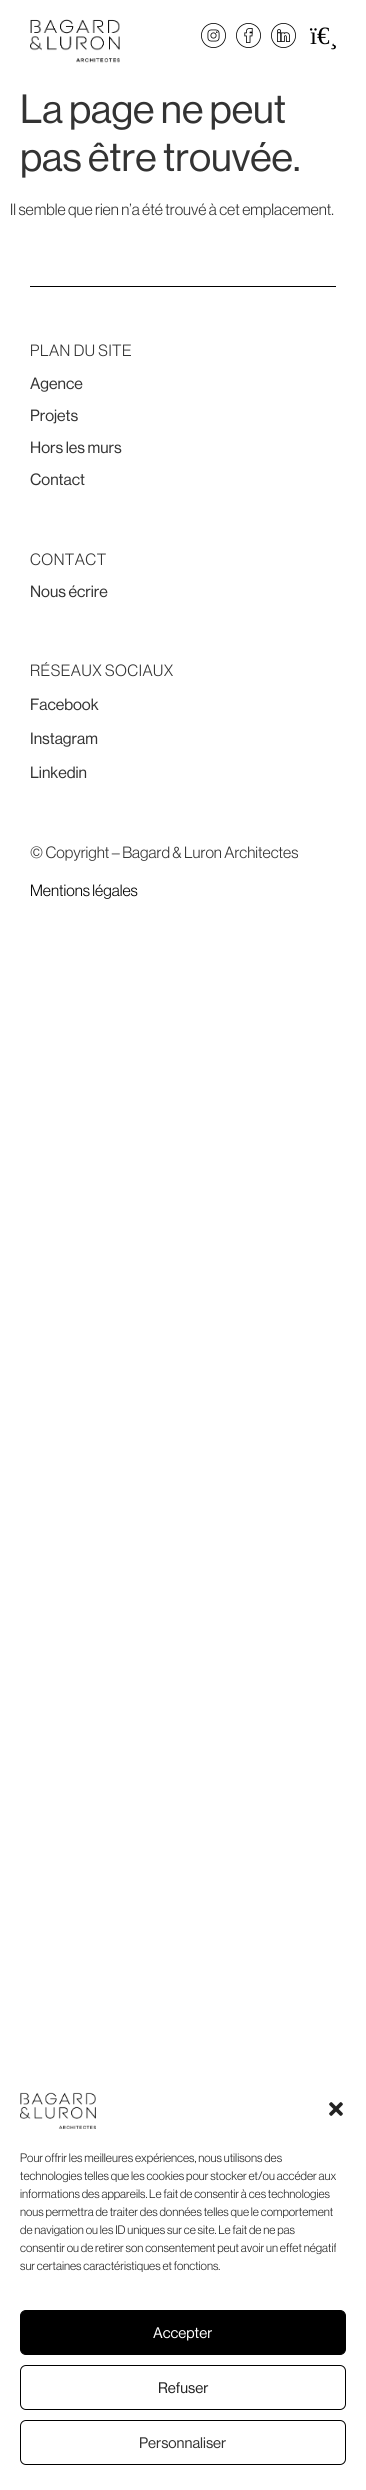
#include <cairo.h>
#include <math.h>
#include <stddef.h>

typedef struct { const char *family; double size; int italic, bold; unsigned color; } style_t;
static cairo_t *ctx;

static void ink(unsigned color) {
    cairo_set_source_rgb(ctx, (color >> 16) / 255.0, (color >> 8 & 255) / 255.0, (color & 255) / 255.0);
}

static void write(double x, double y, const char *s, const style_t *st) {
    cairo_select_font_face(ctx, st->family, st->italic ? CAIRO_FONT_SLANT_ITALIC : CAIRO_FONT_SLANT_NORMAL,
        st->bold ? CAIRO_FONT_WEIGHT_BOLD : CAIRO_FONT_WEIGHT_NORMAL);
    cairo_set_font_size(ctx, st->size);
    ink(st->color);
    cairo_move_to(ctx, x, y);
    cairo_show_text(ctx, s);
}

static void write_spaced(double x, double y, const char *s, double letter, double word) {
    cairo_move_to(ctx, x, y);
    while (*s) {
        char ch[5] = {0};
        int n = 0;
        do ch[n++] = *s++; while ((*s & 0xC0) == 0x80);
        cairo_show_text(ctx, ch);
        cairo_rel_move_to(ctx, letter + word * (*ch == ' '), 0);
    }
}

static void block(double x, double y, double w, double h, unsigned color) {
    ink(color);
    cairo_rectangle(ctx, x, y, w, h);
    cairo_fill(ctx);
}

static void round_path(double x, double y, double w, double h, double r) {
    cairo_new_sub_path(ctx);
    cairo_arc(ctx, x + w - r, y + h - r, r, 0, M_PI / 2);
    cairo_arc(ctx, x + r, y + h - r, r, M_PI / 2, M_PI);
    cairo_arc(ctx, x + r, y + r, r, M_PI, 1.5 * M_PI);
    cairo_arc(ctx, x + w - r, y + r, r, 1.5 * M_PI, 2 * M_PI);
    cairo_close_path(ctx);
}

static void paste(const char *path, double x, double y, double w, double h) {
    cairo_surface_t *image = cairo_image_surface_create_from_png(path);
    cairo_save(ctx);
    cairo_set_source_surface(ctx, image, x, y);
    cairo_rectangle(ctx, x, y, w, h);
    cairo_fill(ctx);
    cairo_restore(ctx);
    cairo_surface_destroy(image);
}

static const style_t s1 = {"Liberation Serif", 25, 0, 0, 0x000000};
static const style_t s2 = {"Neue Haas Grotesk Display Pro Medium", 40, 0, 0, 0x333333};
static const style_t s3 = {"Neue Haas Grotesk Display Pro", 16, 0, 0, 0x333333};
static const style_t s4 = {"Neue Haas Grotesk Display Pro Medium", 16, 0, 0, 0x333333};
static const style_t s5 = {"Neue Haas Grotesk Display Pro", 16, 0, 0, 0x000000};
static const style_t s6 = {"Neue Haas Grotesk Display Pro", 12, 0, 0, 0x222222};
static const style_t s7 = {"Neue Haas Grotesk Display Pro Medium", 15, 0, 0, 0xffffff};
static const style_t s8 = {"Neue Haas Grotesk Display Pro Medium", 15, 0, 0, 0x222222};
static const style_t s9 = {"Neue Haas Grotesk Display Pro Medium", 15, 0, 0, 0x333333};

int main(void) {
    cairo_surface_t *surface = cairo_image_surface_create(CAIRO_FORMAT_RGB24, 366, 2490);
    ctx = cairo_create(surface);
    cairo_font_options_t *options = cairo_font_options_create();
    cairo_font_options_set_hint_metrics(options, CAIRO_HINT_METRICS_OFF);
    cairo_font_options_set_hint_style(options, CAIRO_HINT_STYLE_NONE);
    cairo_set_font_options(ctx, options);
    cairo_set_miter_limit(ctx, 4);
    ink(0xffffff);
    cairo_paint(ctx);
    paste("pic1.png", 30, 19, 90, 44);
    paste("pic2.png", 201, 23, 25, 25);
    paste("pic3.png", 236, 23, 25, 25);
    paste("pic4.png", 271, 23, 25, 25);
    write(310, 44, "ï€¸", &s1);
    write(20, 123, "La page ne peut", &s2);
    write(20, 171, "pas être trouvée.", &s2);
    write(10, 215, "Il semble que rien n’a été trouvé à cet emplacement.", &s3);
    block(30, 286, 306, 1, 0x000000);
    ink(0x333333);
    write_spaced(30, 356, "PLAN DU SITE", 0.5, 0);
    write(30, 389, "Agence", &s4);
    write(30, 421, "Projets", &s4);
    write(30, 453, "Hors les murs", &s4);
    write(30, 485, "Contact", &s4);
    cairo_select_font_face(ctx, "Neue Haas Grotesk Display Pro", CAIRO_FONT_SLANT_NORMAL, CAIRO_FONT_WEIGHT_NORMAL);
    write_spaced(30, 565, "CONTACT", 0.5, 0);
    write(30, 597, "Nous écrire", &s4);
    cairo_select_font_face(ctx, "Neue Haas Grotesk Display Pro", CAIRO_FONT_SLANT_NORMAL, CAIRO_FONT_WEIGHT_NORMAL);
    write_spaced(30, 676, "RÉSEAUX SOCIAUX", 0.5, 0);
    write(30, 710, "Facebook", &s4);
    write(30, 744, "Instagram", &s4);
    write(30, 778, "Linkedin", &s4);
    write(30, 858, "© Copyright – Bagard & Luron Architectes", &s3);
    write(30, 896, "Mentions légales", &s5);
    paste("pic5.png", 20, 2092, 76, 37);
    paste("pic6.png", 329, 2102, 14, 14);
    write(20, 2162, "Pour offrir les meilleures expériences, nous utilisons des", &s6);
    write(20, 2180, "technologies telles que les cookies pour stocker et/ou accéder aux", &s6);
    write(20, 2198, "informations des appareils. Le fait de consentir à ces technologies", &s6);
    write(20, 2216, "nous permettra de traiter des données telles que le comportement", &s6);
    write(20, 2234, "de navigation ou les ID uniques sur ce site. Le fait de ne pas", &s6);
    write(20, 2252, "consentir ou de retirer son consentement peut avoir un effet négatif", &s6);
    write(20, 2270, "sur certaines caractéristiques et fonctions.", &s6);
    ink(0x000000);
    round_path(20.5, 2310.5, 325, 44, 5.5);
    cairo_fill_preserve(ctx);
    cairo_set_line_width(ctx, 1);
    cairo_stroke(ctx);
    write(153, 2338, "Accepter", &s7);
    round_path(20.5, 2365.5, 325, 44, 5.5);
    ink(0x000000);
    cairo_stroke(ctx);
    write(158, 2393, "Refuser", &s8);
    round_path(20.5, 2420.5, 325, 44, 5.5);
    ink(0x000000);
    cairo_stroke(ctx);
    write(139, 2448, "Personnaliser", &s9);
    cairo_surface_write_to_png(surface, "screenshot.png");
    cairo_font_options_destroy(options);
    cairo_destroy(ctx);
    cairo_surface_destroy(surface);
    return 0;
}
